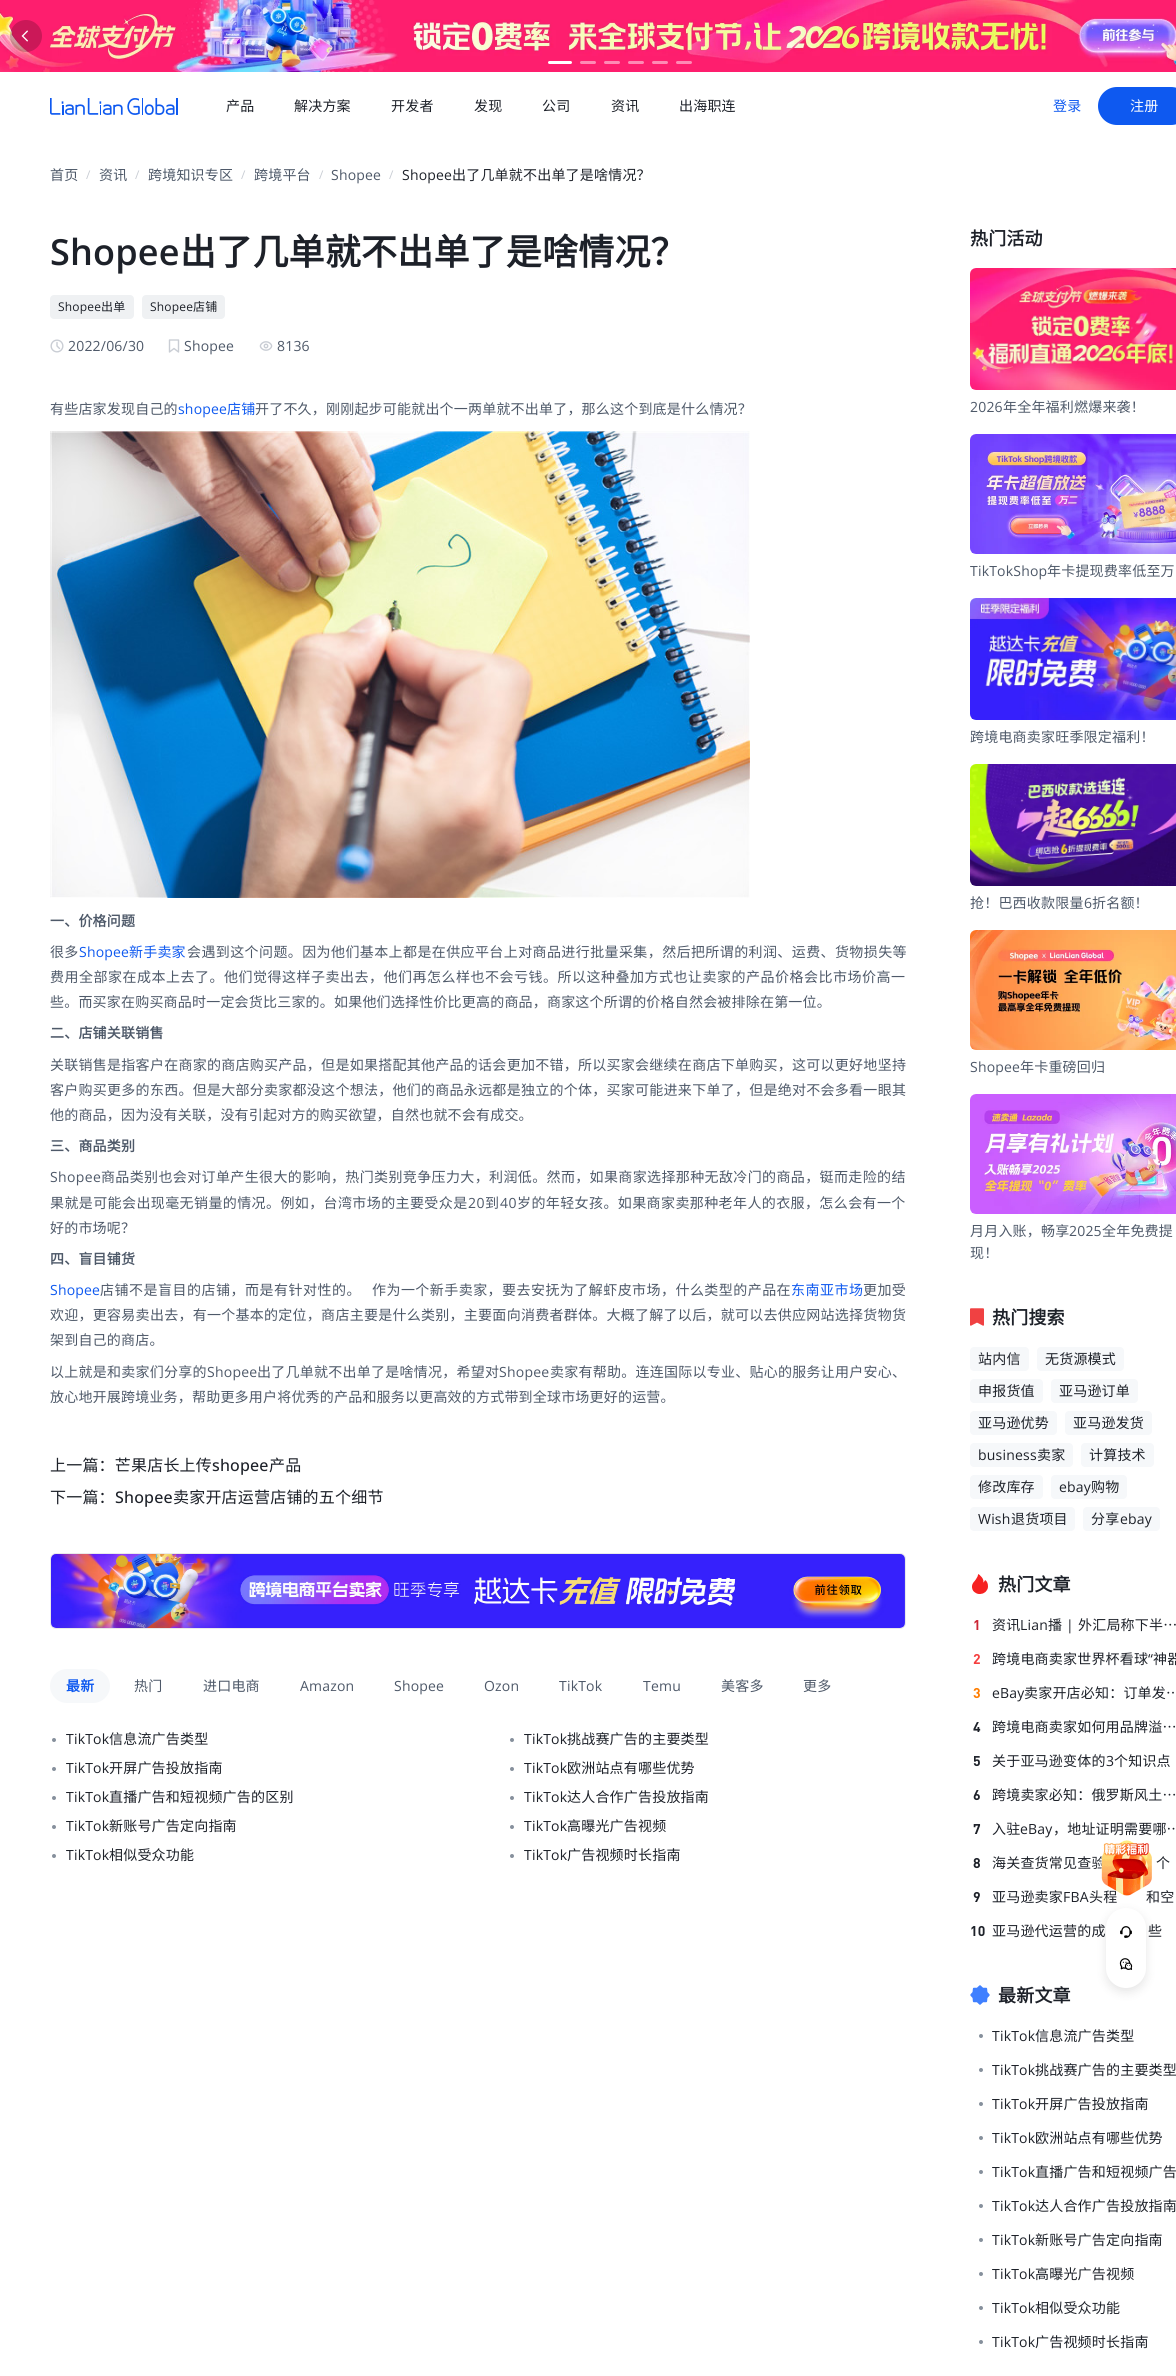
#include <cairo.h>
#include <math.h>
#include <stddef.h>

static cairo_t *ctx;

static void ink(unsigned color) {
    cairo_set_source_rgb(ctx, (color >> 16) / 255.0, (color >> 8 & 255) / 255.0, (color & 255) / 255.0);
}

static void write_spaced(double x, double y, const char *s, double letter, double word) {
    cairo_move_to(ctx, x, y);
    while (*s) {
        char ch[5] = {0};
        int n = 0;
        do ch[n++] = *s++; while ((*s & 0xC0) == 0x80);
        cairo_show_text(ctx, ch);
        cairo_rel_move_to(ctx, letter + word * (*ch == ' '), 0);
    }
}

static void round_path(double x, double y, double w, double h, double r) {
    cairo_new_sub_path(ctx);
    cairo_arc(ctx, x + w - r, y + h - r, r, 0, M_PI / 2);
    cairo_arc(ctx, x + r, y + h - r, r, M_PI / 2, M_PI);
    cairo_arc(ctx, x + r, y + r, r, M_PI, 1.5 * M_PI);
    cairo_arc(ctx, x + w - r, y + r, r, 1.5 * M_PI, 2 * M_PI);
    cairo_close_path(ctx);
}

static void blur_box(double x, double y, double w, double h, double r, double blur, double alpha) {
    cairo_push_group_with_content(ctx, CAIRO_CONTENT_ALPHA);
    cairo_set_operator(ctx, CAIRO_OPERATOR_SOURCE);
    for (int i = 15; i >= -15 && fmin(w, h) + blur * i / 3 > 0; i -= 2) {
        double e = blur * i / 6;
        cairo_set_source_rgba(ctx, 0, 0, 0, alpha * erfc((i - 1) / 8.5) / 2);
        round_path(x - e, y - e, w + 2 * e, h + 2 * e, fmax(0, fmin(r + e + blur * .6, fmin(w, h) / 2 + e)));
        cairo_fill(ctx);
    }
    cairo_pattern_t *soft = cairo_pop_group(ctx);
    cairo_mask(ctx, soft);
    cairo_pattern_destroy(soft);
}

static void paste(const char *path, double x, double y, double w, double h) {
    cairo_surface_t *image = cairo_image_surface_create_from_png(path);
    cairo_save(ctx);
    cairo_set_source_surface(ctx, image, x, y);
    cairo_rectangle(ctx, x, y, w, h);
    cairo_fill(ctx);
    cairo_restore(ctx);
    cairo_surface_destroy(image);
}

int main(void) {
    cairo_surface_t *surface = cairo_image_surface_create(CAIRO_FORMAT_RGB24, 1176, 2376);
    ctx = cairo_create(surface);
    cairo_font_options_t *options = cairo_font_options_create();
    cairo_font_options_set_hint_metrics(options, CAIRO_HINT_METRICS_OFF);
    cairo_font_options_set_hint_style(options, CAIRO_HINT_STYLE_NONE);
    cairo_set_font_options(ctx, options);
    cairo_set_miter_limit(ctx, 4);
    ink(0xffffff);
    cairo_paint(ctx);
    paste("pic1.png", 0, 0, 1176, 72);
    cairo_set_source_rgba(ctx, 0, 0, 0, 0.2);
    cairo_arc(ctx, 26, 36, 16, 0, 2 * M_PI);
    cairo_fill(ctx);
    paste("pic2.png", 21, 30, 7, 12);
    ink(0xffffff);
    round_path(548, 61, 24, 3, 1.5);
    cairo_fill(ctx);
    ink(0xfe8ab4);
    round_path(580, 61, 16, 3, 1.5);
    cairo_fill(ctx);
    round_path(604, 61, 16, 3, 1.5);
    cairo_fill(ctx);
    round_path(628, 61, 16, 3, 1.5);
    cairo_fill(ctx);
    round_path(652, 61, 16, 3, 1.5);
    cairo_fill(ctx);
    round_path(676, 61, 16, 3, 1.5);
    cairo_fill(ctx);
    paste("pic3.png", 50, 98, 128, 17);
    cairo_select_font_face(ctx, "Noto Sans CJK SC", CAIRO_FONT_SLANT_NORMAL, CAIRO_FONT_WEIGHT_NORMAL);
    cairo_set_font_size(ctx, 14);
    ink(0x1d2129);
    write_spaced(226, 111, "产品", 0.2, 0);
    write_spaced(294, 111, "解决方案", 0.2, 0);
    write_spaced(391, 111, "开发者", 0.2, 0);
    write_spaced(474, 111, "发现", 0.2, 0);
    write_spaced(542, 111, "公司", 0.2, 0);
    write_spaced(611, 111, "资讯", 0.2, 0);
    write_spaced(679, 111, "出海职连", 0.2, 0);
    ink(0x0e59f0);
    write_spaced(1053, 111, "登录", 0.2, 0);
    round_path(1098, 87, 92, 38, 19);
    cairo_fill(ctx);
    ink(0xffffff);
    write_spaced(1130, 111, "注册", 0.2, 0);
    ink(0x4e5969);
    write_spaced(50, 180, "首页", 0.2, 0);
    cairo_select_font_face(ctx, "Open Sans", CAIRO_FONT_SLANT_NORMAL, CAIRO_FONT_WEIGHT_NORMAL);
    cairo_set_font_size(ctx, 12);
    ink(0xc9cdd4);
    write_spaced(86, 179, "/", 0.2, 0);
    cairo_select_font_face(ctx, "Noto Sans CJK SC", CAIRO_FONT_SLANT_NORMAL, CAIRO_FONT_WEIGHT_NORMAL);
    cairo_set_font_size(ctx, 14);
    ink(0x4e5969);
    write_spaced(99, 180, "资讯", 0.2, 0);
    cairo_select_font_face(ctx, "Open Sans", CAIRO_FONT_SLANT_NORMAL, CAIRO_FONT_WEIGHT_NORMAL);
    cairo_set_font_size(ctx, 12);
    ink(0xc9cdd4);
    write_spaced(135, 179, "/", 0.2, 0);
    cairo_select_font_face(ctx, "Noto Sans CJK SC", CAIRO_FONT_SLANT_NORMAL, CAIRO_FONT_WEIGHT_NORMAL);
    cairo_set_font_size(ctx, 14);
    ink(0x4e5969);
    write_spaced(148, 180, "跨境知识专区", 0.2, 0);
    cairo_select_font_face(ctx, "Open Sans", CAIRO_FONT_SLANT_NORMAL, CAIRO_FONT_WEIGHT_NORMAL);
    cairo_set_font_size(ctx, 12);
    ink(0xc9cdd4);
    write_spaced(241, 179, "/", 0.2, 0);
    cairo_select_font_face(ctx, "Noto Sans CJK SC", CAIRO_FONT_SLANT_NORMAL, CAIRO_FONT_WEIGHT_NORMAL);
    cairo_set_font_size(ctx, 14);
    ink(0x4e5969);
    write_spaced(254, 180, "跨境平台", 0.2, 0);
    cairo_select_font_face(ctx, "Open Sans", CAIRO_FONT_SLANT_NORMAL, CAIRO_FONT_WEIGHT_NORMAL);
    cairo_set_font_size(ctx, 12);
    ink(0xc9cdd4);
    write_spaced(319, 179, "/", 0.2, 0);
    cairo_set_font_size(ctx, 14);
    ink(0x4e5969);
    write_spaced(331, 180, "Shopee", 0.2, 0);
    cairo_set_font_size(ctx, 12);
    ink(0xc9cdd4);
    write_spaced(389, 179, "/", 0.2, 0);
    cairo_set_font_size(ctx, 14);
    ink(0x1d2129);
    write_spaced(402, 180, "Shopee", 0.2, 0);
    cairo_select_font_face(ctx, "Noto Sans CJK SC", CAIRO_FONT_SLANT_NORMAL, CAIRO_FONT_WEIGHT_NORMAL);
    write_spaced(452, 180, "出了几单就不出单了是啥情况？", 0.2, 0);
    cairo_select_font_face(ctx, "Open Sans SemiBold", CAIRO_FONT_SLANT_NORMAL, CAIRO_FONT_WEIGHT_NORMAL);
    cairo_set_font_size(ctx, 36);
    write_spaced(50, 265, "Shopee", 0.2, 0);
    cairo_select_font_face(ctx, "Noto Sans CJK SC", CAIRO_FONT_SLANT_NORMAL, CAIRO_FONT_WEIGHT_BOLD);
    write_spaced(180, 265, "出了几单就不出单了是啥情况？", 0.2, 0);
    ink(0xeff1f3);
    round_path(50, 295, 84, 24, 4);
    cairo_fill(ctx);
    cairo_select_font_face(ctx, "Open Sans", CAIRO_FONT_SLANT_NORMAL, CAIRO_FONT_WEIGHT_NORMAL);
    cairo_set_font_size(ctx, 12);
    ink(0x1d2129);
    write_spaced(58, 311, "Shopee", 0.2, 0);
    cairo_select_font_face(ctx, "Noto Sans CJK SC", CAIRO_FONT_SLANT_NORMAL, CAIRO_FONT_WEIGHT_NORMAL);
    write_spaced(101, 311, "出单", 0.2, 0);
    ink(0xeff1f3);
    round_path(142, 295, 83, 24, 4);
    cairo_fill(ctx);
    cairo_select_font_face(ctx, "Open Sans", CAIRO_FONT_SLANT_NORMAL, CAIRO_FONT_WEIGHT_NORMAL);
    ink(0x1d2129);
    write_spaced(150, 311, "Shopee", 0.2, 0);
    cairo_select_font_face(ctx, "Noto Sans CJK SC", CAIRO_FONT_SLANT_NORMAL, CAIRO_FONT_WEIGHT_NORMAL);
    write_spaced(193, 311, "店铺", 0.2, 0);
    paste("pic4.png", 50, 339, 14, 14);
    cairo_select_font_face(ctx, "Open Sans", CAIRO_FONT_SLANT_NORMAL, CAIRO_FONT_WEIGHT_NORMAL);
    cairo_set_font_size(ctx, 14);
    ink(0x4e5969);
    write_spaced(68, 351, "2022/06/30", 0.2, 0);
    cairo_new_path(ctx);
    cairo_move_to(ctx, 169.5, 340);
    cairo_line_to(ctx, 178.5, 340);
    cairo_line_to(ctx, 178.5, 352);
    cairo_line_to(ctx, 174, 348.5);
    cairo_line_to(ctx, 169.5, 352);
    cairo_close_path(ctx);
    ink(0xc9cdd4);
    cairo_set_line_width(ctx, 1.4);
    cairo_set_line_join(ctx, CAIRO_LINE_JOIN_ROUND);
    cairo_stroke(ctx);
    ink(0x4e5969);
    write_spaced(184, 351, "Shopee", 0.2, 0);
    paste("pic5.png", 259, 341, 14, 10);
    write_spaced(277, 351, "8136", 0.2, 0);
    cairo_select_font_face(ctx, "Noto Sans CJK SC", CAIRO_FONT_SLANT_NORMAL, CAIRO_FONT_WEIGHT_NORMAL);
    write_spaced(50, 414, "有些店家发现自己的", 0.2, 0);
    cairo_select_font_face(ctx, "Open Sans", CAIRO_FONT_SLANT_NORMAL, CAIRO_FONT_WEIGHT_NORMAL);
    ink(0x0e59f0);
    write_spaced(178, 414, "shopee", 0.2, 0);
    cairo_select_font_face(ctx, "Noto Sans CJK SC", CAIRO_FONT_SLANT_NORMAL, CAIRO_FONT_WEIGHT_NORMAL);
    write_spaced(227, 414, "店铺", 0.2, 0);
    ink(0x4e5969);
    write_spaced(255, 414, "开了不久，刚刚起步可能就出个一两单就不出单了，那么这个到底是什么情况？", 0.2, 0);
    paste("pic6.png", 50, 431, 700, 467);
    cairo_select_font_face(ctx, "Noto Sans CJK SC", CAIRO_FONT_SLANT_NORMAL, CAIRO_FONT_WEIGHT_BOLD);
    write_spaced(50, 926, "一、价格问题", 0.2, 0);
    cairo_select_font_face(ctx, "Noto Sans CJK SC", CAIRO_FONT_SLANT_NORMAL, CAIRO_FONT_WEIGHT_NORMAL);
    write_spaced(50, 957, "很多", 0.2, 0);
    cairo_select_font_face(ctx, "Open Sans", CAIRO_FONT_SLANT_NORMAL, CAIRO_FONT_WEIGHT_NORMAL);
    ink(0x0e59f0);
    write_spaced(79, 957, "Shopee", 0.2, 0);
    cairo_select_font_face(ctx, "Noto Sans CJK SC", CAIRO_FONT_SLANT_NORMAL, CAIRO_FONT_WEIGHT_NORMAL);
    write_spaced(129, 957, "新手卖家", 0.2, 0);
    ink(0x4e5969);
    write_spaced(187, 957, "会遇到这个问题。因为他们基本上都是在供应平台上对商品进行批量采集，然后把所谓的利润、运费、货物损失等", 0.4, 0);
    write_spaced(50, 982, "费用全部家在成本上去了。他们觉得这样子卖出去，他们再怎么样也不会亏钱。所以这种叠加方式也让卖家的产品价格会比市场价高一", 0.5, 0);
    write_spaced(50, 1007, "些。而买家在购买商品时一定会货比三家的。如果他们选择性价比更高的商品，商家这个所谓的价格自然会被排除在第一位。", 0.2, 0);
    cairo_select_font_face(ctx, "Noto Sans CJK SC", CAIRO_FONT_SLANT_NORMAL, CAIRO_FONT_WEIGHT_BOLD);
    write_spaced(50, 1038, "二、店铺关联销售", 0.2, 0);
    cairo_select_font_face(ctx, "Noto Sans CJK SC", CAIRO_FONT_SLANT_NORMAL, CAIRO_FONT_WEIGHT_NORMAL);
    write_spaced(50, 1070, "关联销售是指客户在商家的商店购买产品，但是如果搭配其他产品的话会更加不错，所以买家会继续在商店下单购买，这可以更好地坚持", 0.27, 0);
    write_spaced(50, 1095, "客户购买更多的东西。但是大部分卖家都没这个想法，他们的商品永远都是独立的个体，买家可能进来下单了，但是绝对不会多看一眼其", 0.27, 0);
    write_spaced(50, 1120, "他的商品，因为没有关联，没有引起对方的购买欲望，自然也就不会有成交。", 0.2, 0);
    cairo_select_font_face(ctx, "Noto Sans CJK SC", CAIRO_FONT_SLANT_NORMAL, CAIRO_FONT_WEIGHT_BOLD);
    write_spaced(50, 1151, "三、商品类别", 0.2, 0);
    cairo_select_font_face(ctx, "Open Sans", CAIRO_FONT_SLANT_NORMAL, CAIRO_FONT_WEIGHT_NORMAL);
    write_spaced(50, 1182, "Shopee", 0.37, 0);
    cairo_select_font_face(ctx, "Noto Sans CJK SC", CAIRO_FONT_SLANT_NORMAL, CAIRO_FONT_WEIGHT_NORMAL);
    write_spaced(101, 1182, "商品类别也会对订单产生很大的影响，热门类别竞争压力大，利润低。然而，如果商家选择那种无敌冷门的商品，铤而走险的结", 0.37, 0);
    write_spaced(50, 1208, "果就是可能会出现毫无销量的情况。例如，台湾市场的主要受众是", 0.4, 0);
    cairo_select_font_face(ctx, "Open Sans", CAIRO_FONT_SLANT_NORMAL, CAIRO_FONT_WEIGHT_NORMAL);
    write_spaced(468, 1208, "20", 0.4, 0);
    cairo_select_font_face(ctx, "Noto Sans CJK SC", CAIRO_FONT_SLANT_NORMAL, CAIRO_FONT_WEIGHT_NORMAL);
    write_spaced(485, 1208, "到", 0.4, 0);
    cairo_select_font_face(ctx, "Open Sans", CAIRO_FONT_SLANT_NORMAL, CAIRO_FONT_WEIGHT_NORMAL);
    write_spaced(500, 1208, "40", 0.4, 0);
    cairo_select_font_face(ctx, "Noto Sans CJK SC", CAIRO_FONT_SLANT_NORMAL, CAIRO_FONT_WEIGHT_NORMAL);
    write_spaced(517, 1208, "岁的年轻女孩。如果商家卖那种老年人的衣服，怎么会有一个", 0.4, 0);
    write_spaced(50, 1233, "好的市场呢？", 0.2, 0);
    cairo_select_font_face(ctx, "Noto Sans CJK SC", CAIRO_FONT_SLANT_NORMAL, CAIRO_FONT_WEIGHT_BOLD);
    write_spaced(50, 1264, "四、盲目铺货", 0.2, 0);
    cairo_select_font_face(ctx, "Open Sans", CAIRO_FONT_SLANT_NORMAL, CAIRO_FONT_WEIGHT_NORMAL);
    ink(0x0e59f0);
    write_spaced(50, 1295, "Shopee", 0.2, 0);
    cairo_select_font_face(ctx, "Noto Sans CJK SC", CAIRO_FONT_SLANT_NORMAL, CAIRO_FONT_WEIGHT_NORMAL);
    ink(0x4e5969);
    write_spaced(100, 1295, "店铺不是盲目的店铺，而是有针对性的。", 0.5, 0);
    write_spaced(372, 1295, "作为一个新手卖家，要去安抚为了解虾皮市场，什么类型的产品在", 0.45, 0);
    ink(0x0e59f0);
    write_spaced(791, 1295, "东南亚市场", 0.5, 0);
    ink(0x4e5969);
    write_spaced(863, 1295, "更加受", 0.4, 0);
    write_spaced(50, 1320, "欢迎，更容易卖出去，有一个基本的定位，商店主要是什么类别，主要面向消费者群体。大概了解了以后，就可以去供应网站选择货物货", 0.27, 0);
    write_spaced(50, 1345, "架到自己的商店。", 0.2, 0);
    write_spaced(50, 1377, "以上就是和卖家们分享的", 0.25, 0);
    cairo_select_font_face(ctx, "Open Sans", CAIRO_FONT_SLANT_NORMAL, CAIRO_FONT_WEIGHT_NORMAL);
    write_spaced(207, 1377, "Shopee", 0.25, 0);
    cairo_select_font_face(ctx, "Noto Sans CJK SC", CAIRO_FONT_SLANT_NORMAL, CAIRO_FONT_WEIGHT_NORMAL);
    write_spaced(257, 1377, "出了几单就不出单了是啥情况，希望对", 0.25, 0);
    cairo_select_font_face(ctx, "Open Sans", CAIRO_FONT_SLANT_NORMAL, CAIRO_FONT_WEIGHT_NORMAL);
    write_spaced(499, 1377, "Shopee", 0.25, 0);
    cairo_select_font_face(ctx, "Noto Sans CJK SC", CAIRO_FONT_SLANT_NORMAL, CAIRO_FONT_WEIGHT_NORMAL);
    write_spaced(550, 1377, "卖家有帮助。连连国际以专业、贴心的服务让用户安心、", 0.25, 0);
    write_spaced(50, 1402, "放心地开展跨境业务，帮助更多用户将优秀的产品和服务以更高效的方式带到全球市场更好的运营。", 0.2, 0);
    cairo_set_font_size(ctx, 16);
    ink(0x1d2129);
    write_spaced(50, 1471, "上一篇：芒果店长上传", 0.2, 0);
    cairo_select_font_face(ctx, "Open Sans Medium", CAIRO_FONT_SLANT_NORMAL, CAIRO_FONT_WEIGHT_NORMAL);
    write_spaced(212, 1471, "shopee", 0.2, 0);
    cairo_select_font_face(ctx, "Noto Sans CJK SC", CAIRO_FONT_SLANT_NORMAL, CAIRO_FONT_WEIGHT_NORMAL);
    write_spaced(269, 1471, "产品", 0.2, 0);
    write_spaced(50, 1503, "下一篇：", 0.2, 0);
    cairo_select_font_face(ctx, "Open Sans Medium", CAIRO_FONT_SLANT_NORMAL, CAIRO_FONT_WEIGHT_NORMAL);
    write_spaced(115, 1503, "Shopee", 0.2, 0);
    cairo_select_font_face(ctx, "Noto Sans CJK SC", CAIRO_FONT_SLANT_NORMAL, CAIRO_FONT_WEIGHT_NORMAL);
    write_spaced(173, 1503, "卖家开店运营店铺的五个细节", 0.2, 0);
    round_path(50.5, 1553.5, 855, 75, 5.5);
    ink(0xeaeaea);
    cairo_set_line_width(ctx, 1);
    cairo_set_line_join(ctx, CAIRO_LINE_JOIN_MITER);
    cairo_stroke(ctx);
    paste("pic7.png", 51, 1554, 854, 74);
    ink(0xf6f8fa);
    round_path(50, 1669, 60, 34, 17);
    cairo_fill(ctx);
    cairo_select_font_face(ctx, "Noto Sans CJK SC", CAIRO_FONT_SLANT_NORMAL, CAIRO_FONT_WEIGHT_BOLD);
    cairo_set_font_size(ctx, 14);
    ink(0x0e59f0);
    write_spaced(66, 1691, "最新", 0.2, 0);
    cairo_select_font_face(ctx, "Noto Sans CJK SC", CAIRO_FONT_SLANT_NORMAL, CAIRO_FONT_WEIGHT_NORMAL);
    ink(0x4e5969);
    write_spaced(134, 1691, "热门", 0.2, 0);
    write_spaced(203, 1691, "进口电商", 0.2, 0);
    cairo_select_font_face(ctx, "Open Sans", CAIRO_FONT_SLANT_NORMAL, CAIRO_FONT_WEIGHT_NORMAL);
    write_spaced(300, 1691, "Amazon", 0.2, 0);
    write_spaced(394, 1691, "Shopee", 0.2, 0);
    write_spaced(484, 1691, "Ozon", 0.2, 0);
    write_spaced(559, 1691, "TikTok", 0.2, 0);
    write_spaced(643, 1691, "Temu", 0.2, 0);
    cairo_select_font_face(ctx, "Noto Sans CJK SC", CAIRO_FONT_SLANT_NORMAL, CAIRO_FONT_WEIGHT_NORMAL);
    write_spaced(721, 1691, "美客多", 0.2, 0);
    write_spaced(803, 1691, "更多", 0.2, 0);
    ink(0x86909c);
    cairo_new_path(ctx);
    cairo_arc(ctx, 54, 1740, 2, 0, 2 * M_PI);
    cairo_fill(ctx);
    cairo_select_font_face(ctx, "Open Sans", CAIRO_FONT_SLANT_NORMAL, CAIRO_FONT_WEIGHT_NORMAL);
    ink(0x1d2129);
    write_spaced(66, 1744, "TikTok", 0.2, 0);
    cairo_select_font_face(ctx, "Noto Sans CJK SC", CAIRO_FONT_SLANT_NORMAL, CAIRO_FONT_WEIGHT_NORMAL);
    write_spaced(109, 1744, "信息流广告类型", 0.2, 0);
    ink(0x86909c);
    cairo_new_path(ctx);
    cairo_arc(ctx, 512, 1740, 2, 0, 2 * M_PI);
    cairo_fill(ctx);
    cairo_select_font_face(ctx, "Open Sans", CAIRO_FONT_SLANT_NORMAL, CAIRO_FONT_WEIGHT_NORMAL);
    ink(0x1d2129);
    write_spaced(524, 1744, "TikTok", 0.2, 0);
    cairo_select_font_face(ctx, "Noto Sans CJK SC", CAIRO_FONT_SLANT_NORMAL, CAIRO_FONT_WEIGHT_NORMAL);
    write_spaced(567, 1744, "挑战赛广告的主要类型", 0.2, 0);
    ink(0x86909c);
    cairo_new_path(ctx);
    cairo_arc(ctx, 54, 1769, 2, 0, 2 * M_PI);
    cairo_fill(ctx);
    cairo_select_font_face(ctx, "Open Sans", CAIRO_FONT_SLANT_NORMAL, CAIRO_FONT_WEIGHT_NORMAL);
    ink(0x1d2129);
    write_spaced(66, 1773, "TikTok", 0.2, 0);
    cairo_select_font_face(ctx, "Noto Sans CJK SC", CAIRO_FONT_SLANT_NORMAL, CAIRO_FONT_WEIGHT_NORMAL);
    write_spaced(109, 1773, "开屏广告投放指南", 0.2, 0);
    ink(0x86909c);
    cairo_new_path(ctx);
    cairo_arc(ctx, 512, 1769, 2, 0, 2 * M_PI);
    cairo_fill(ctx);
    cairo_select_font_face(ctx, "Open Sans", CAIRO_FONT_SLANT_NORMAL, CAIRO_FONT_WEIGHT_NORMAL);
    ink(0x1d2129);
    write_spaced(524, 1773, "TikTok", 0.2, 0);
    cairo_select_font_face(ctx, "Noto Sans CJK SC", CAIRO_FONT_SLANT_NORMAL, CAIRO_FONT_WEIGHT_NORMAL);
    write_spaced(567, 1773, "欧洲站点有哪些优势", 0.2, 0);
    ink(0x86909c);
    cairo_new_path(ctx);
    cairo_arc(ctx, 54, 1798, 2, 0, 2 * M_PI);
    cairo_fill(ctx);
    cairo_select_font_face(ctx, "Open Sans", CAIRO_FONT_SLANT_NORMAL, CAIRO_FONT_WEIGHT_NORMAL);
    ink(0x1d2129);
    write_spaced(66, 1802, "TikTok", 0.2, 0);
    cairo_select_font_face(ctx, "Noto Sans CJK SC", CAIRO_FONT_SLANT_NORMAL, CAIRO_FONT_WEIGHT_NORMAL);
    write_spaced(109, 1802, "直播广告和短视频广告的区别", 0.2, 0);
    ink(0x86909c);
    cairo_new_path(ctx);
    cairo_arc(ctx, 512, 1798, 2, 0, 2 * M_PI);
    cairo_fill(ctx);
    cairo_select_font_face(ctx, "Open Sans", CAIRO_FONT_SLANT_NORMAL, CAIRO_FONT_WEIGHT_NORMAL);
    ink(0x1d2129);
    write_spaced(524, 1802, "TikTok", 0.2, 0);
    cairo_select_font_face(ctx, "Noto Sans CJK SC", CAIRO_FONT_SLANT_NORMAL, CAIRO_FONT_WEIGHT_NORMAL);
    write_spaced(567, 1802, "达人合作广告投放指南", 0.2, 0);
    ink(0x86909c);
    cairo_new_path(ctx);
    cairo_arc(ctx, 54, 1827, 2, 0, 2 * M_PI);
    cairo_fill(ctx);
    cairo_select_font_face(ctx, "Open Sans", CAIRO_FONT_SLANT_NORMAL, CAIRO_FONT_WEIGHT_NORMAL);
    ink(0x1d2129);
    write_spaced(66, 1831, "TikTok", 0.2, 0);
    cairo_select_font_face(ctx, "Noto Sans CJK SC", CAIRO_FONT_SLANT_NORMAL, CAIRO_FONT_WEIGHT_NORMAL);
    write_spaced(109, 1831, "新账号广告定向指南", 0.2, 0);
    ink(0x86909c);
    cairo_new_path(ctx);
    cairo_arc(ctx, 512, 1827, 2, 0, 2 * M_PI);
    cairo_fill(ctx);
    cairo_select_font_face(ctx, "Open Sans", CAIRO_FONT_SLANT_NORMAL, CAIRO_FONT_WEIGHT_NORMAL);
    ink(0x1d2129);
    write_spaced(524, 1831, "TikTok", 0.2, 0);
    cairo_select_font_face(ctx, "Noto Sans CJK SC", CAIRO_FONT_SLANT_NORMAL, CAIRO_FONT_WEIGHT_NORMAL);
    write_spaced(567, 1831, "高曝光广告视频", 0.2, 0);
    ink(0x86909c);
    cairo_new_path(ctx);
    cairo_arc(ctx, 54, 1856, 2, 0, 2 * M_PI);
    cairo_fill(ctx);
    cairo_select_font_face(ctx, "Open Sans", CAIRO_FONT_SLANT_NORMAL, CAIRO_FONT_WEIGHT_NORMAL);
    ink(0x1d2129);
    write_spaced(66, 1860, "TikTok", 0.2, 0);
    cairo_select_font_face(ctx, "Noto Sans CJK SC", CAIRO_FONT_SLANT_NORMAL, CAIRO_FONT_WEIGHT_NORMAL);
    write_spaced(109, 1860, "相似受众功能", 0.2, 0);
    ink(0x86909c);
    cairo_new_path(ctx);
    cairo_arc(ctx, 512, 1856, 2, 0, 2 * M_PI);
    cairo_fill(ctx);
    cairo_select_font_face(ctx, "Open Sans", CAIRO_FONT_SLANT_NORMAL, CAIRO_FONT_WEIGHT_NORMAL);
    ink(0x1d2129);
    write_spaced(524, 1860, "TikTok", 0.2, 0);
    cairo_select_font_face(ctx, "Noto Sans CJK SC", CAIRO_FONT_SLANT_NORMAL, CAIRO_FONT_WEIGHT_NORMAL);
    write_spaced(567, 1860, "广告视频时长指南", 0.2, 0);
    cairo_select_font_face(ctx, "Noto Sans CJK SC", CAIRO_FONT_SLANT_NORMAL, CAIRO_FONT_WEIGHT_BOLD);
    cairo_set_font_size(ctx, 18);
    write_spaced(970, 245, "热门活动", 0.2, 0);
    paste("pic8.png", 970, 268, 206, 122);
    cairo_select_font_face(ctx, "Open Sans", CAIRO_FONT_SLANT_NORMAL, CAIRO_FONT_WEIGHT_NORMAL);
    cairo_set_font_size(ctx, 14);
    ink(0x4e5969);
    write_spaced(970, 412, "2026", 0.2, 0);
    cairo_select_font_face(ctx, "Noto Sans CJK SC", CAIRO_FONT_SLANT_NORMAL, CAIRO_FONT_WEIGHT_NORMAL);
    write_spaced(1003, 412, "年全年福利燃爆来袭！", 0.2, 0);
    paste("pic9.png", 970, 434, 206, 120);
    cairo_select_font_face(ctx, "Open Sans", CAIRO_FONT_SLANT_NORMAL, CAIRO_FONT_WEIGHT_NORMAL);
    write_spaced(970, 576, "TikTokShop", 0.2, 0);
    cairo_select_font_face(ctx, "Noto Sans CJK SC", CAIRO_FONT_SLANT_NORMAL, CAIRO_FONT_WEIGHT_NORMAL);
    write_spaced(1047, 576, "年卡提现费率低至万", 0.2, 0);
    paste("pic10.png", 970, 598, 206, 122);
    write_spaced(970, 742, "跨境电商卖家旺季限定福利！", 0.2, 0);
    paste("pic11.png", 970, 764, 206, 122);
    write_spaced(970, 908, "抢！巴西收款限量", 0.2, 0);
    cairo_select_font_face(ctx, "Open Sans", CAIRO_FONT_SLANT_NORMAL, CAIRO_FONT_WEIGHT_NORMAL);
    write_spaced(1084, 908, "6", 0.2, 0);
    cairo_select_font_face(ctx, "Noto Sans CJK SC", CAIRO_FONT_SLANT_NORMAL, CAIRO_FONT_WEIGHT_NORMAL);
    write_spaced(1092, 908, "折名额！", 0.2, 0);
    paste("pic12.png", 970, 930, 206, 120);
    cairo_select_font_face(ctx, "Open Sans", CAIRO_FONT_SLANT_NORMAL, CAIRO_FONT_WEIGHT_NORMAL);
    write_spaced(970, 1072, "Shopee", 0.2, 0);
    cairo_select_font_face(ctx, "Noto Sans CJK SC", CAIRO_FONT_SLANT_NORMAL, CAIRO_FONT_WEIGHT_NORMAL);
    write_spaced(1020, 1072, "年卡重磅回归", 0.2, 0);
    paste("pic13.png", 970, 1094, 206, 120);
    write_spaced(970, 1236, "月月入账，畅享", 0.2, 0);
    cairo_select_font_face(ctx, "Open Sans", CAIRO_FONT_SLANT_NORMAL, CAIRO_FONT_WEIGHT_NORMAL);
    write_spaced(1069, 1236, "2025", 0.2, 0);
    cairo_select_font_face(ctx, "Noto Sans CJK SC", CAIRO_FONT_SLANT_NORMAL, CAIRO_FONT_WEIGHT_NORMAL);
    write_spaced(1102, 1236, "全年免费提", 0.2, 0);
    write_spaced(970, 1258, "现！", 0.2, 0);
    paste("pic14.png", 970, 1308, 14, 18);
    cairo_select_font_face(ctx, "Noto Sans CJK SC", CAIRO_FONT_SLANT_NORMAL, CAIRO_FONT_WEIGHT_BOLD);
    cairo_set_font_size(ctx, 18);
    ink(0x1d2129);
    write_spaced(992, 1324, "热门搜索", 0.2, 0);
    ink(0xf6f8fa);
    round_path(970, 1347, 59, 24, 4);
    cairo_fill(ctx);
    cairo_select_font_face(ctx, "Noto Sans CJK SC", CAIRO_FONT_SLANT_NORMAL, CAIRO_FONT_WEIGHT_NORMAL);
    cairo_set_font_size(ctx, 14);
    ink(0x1d2129);
    write_spaced(978, 1364, "站内信", 0.2, 0);
    ink(0xf6f8fa);
    round_path(1037, 1347, 87, 24, 4);
    cairo_fill(ctx);
    ink(0x1d2129);
    write_spaced(1045, 1364, "无货源模式", 0.2, 0);
    ink(0xf6f8fa);
    round_path(970, 1379, 73, 24, 4);
    cairo_fill(ctx);
    ink(0x1d2129);
    write_spaced(978, 1396, "申报货值", 0.2, 0);
    ink(0xf6f8fa);
    round_path(1051, 1379, 87, 24, 4);
    cairo_fill(ctx);
    ink(0x1d2129);
    write_spaced(1059, 1396, "亚马逊订单", 0.2, 0);
    ink(0xf6f8fa);
    round_path(970, 1411, 87, 24, 4);
    cairo_fill(ctx);
    ink(0x1d2129);
    write_spaced(978, 1428, "亚马逊优势", 0.2, 0);
    ink(0xf6f8fa);
    round_path(1065, 1411, 87, 24, 4);
    cairo_fill(ctx);
    ink(0x1d2129);
    write_spaced(1073, 1428, "亚马逊发货", 0.2, 0);
    ink(0xf6f8fa);
    round_path(970, 1443, 103, 24, 4);
    cairo_fill(ctx);
    cairo_select_font_face(ctx, "Open Sans", CAIRO_FONT_SLANT_NORMAL, CAIRO_FONT_WEIGHT_NORMAL);
    ink(0x1d2129);
    write_spaced(978, 1460, "business", 0.2, 0);
    cairo_select_font_face(ctx, "Noto Sans CJK SC", CAIRO_FONT_SLANT_NORMAL, CAIRO_FONT_WEIGHT_NORMAL);
    write_spaced(1037, 1460, "卖家", 0.2, 0);
    ink(0xf6f8fa);
    round_path(1081, 1443, 73, 24, 4);
    cairo_fill(ctx);
    ink(0x1d2129);
    write_spaced(1089, 1460, "计算技术", 0.2, 0);
    ink(0xf6f8fa);
    round_path(970, 1475, 73, 24, 4);
    cairo_fill(ctx);
    ink(0x1d2129);
    write_spaced(978, 1492, "修改库存", 0.2, 0);
    ink(0xf6f8fa);
    round_path(1051, 1475, 76, 24, 4);
    cairo_fill(ctx);
    cairo_select_font_face(ctx, "Open Sans", CAIRO_FONT_SLANT_NORMAL, CAIRO_FONT_WEIGHT_NORMAL);
    ink(0x1d2129);
    write_spaced(1059, 1492, "ebay", 0.2, 0);
    cairo_select_font_face(ctx, "Noto Sans CJK SC", CAIRO_FONT_SLANT_NORMAL, CAIRO_FONT_WEIGHT_NORMAL);
    write_spaced(1091, 1492, "购物", 0.2, 0);
    ink(0xf6f8fa);
    round_path(970, 1507, 105, 24, 4);
    cairo_fill(ctx);
    cairo_select_font_face(ctx, "Open Sans", CAIRO_FONT_SLANT_NORMAL, CAIRO_FONT_WEIGHT_NORMAL);
    ink(0x1d2129);
    write_spaced(978, 1524, "Wish", 0.2, 0);
    cairo_select_font_face(ctx, "Noto Sans CJK SC", CAIRO_FONT_SLANT_NORMAL, CAIRO_FONT_WEIGHT_NORMAL);
    write_spaced(1011, 1524, "退货项目", 0.2, 0);
    ink(0xf6f8fa);
    round_path(1083, 1507, 77, 24, 4);
    cairo_fill(ctx);
    ink(0x1d2129);
    write_spaced(1091, 1524, "分享", 0.2, 0);
    cairo_select_font_face(ctx, "Open Sans", CAIRO_FONT_SLANT_NORMAL, CAIRO_FONT_WEIGHT_NORMAL);
    write_spaced(1120, 1524, "ebay", 0.2, 0);
    paste("pic15.png", 972, 1574, 16, 20);
    cairo_select_font_face(ctx, "Noto Sans CJK SC", CAIRO_FONT_SLANT_NORMAL, CAIRO_FONT_WEIGHT_BOLD);
    cairo_set_font_size(ctx, 18);
    write_spaced(998, 1591, "热门文章", 0.2, 0);
    cairo_select_font_face(ctx, "DIN", CAIRO_FONT_SLANT_NORMAL, CAIRO_FONT_WEIGHT_BOLD);
    cairo_set_font_size(ctx, 14);
    ink(0xcb2634);
    write_spaced(973, 1630, "1", 0.2, 0);
    cairo_select_font_face(ctx, "Noto Sans CJK SC", CAIRO_FONT_SLANT_NORMAL, CAIRO_FONT_WEIGHT_NORMAL);
    ink(0x1d2129);
    write_spaced(992, 1630, "资讯", 0.2, 0);
    cairo_select_font_face(ctx, "Open Sans", CAIRO_FONT_SLANT_NORMAL, CAIRO_FONT_WEIGHT_NORMAL);
    write_spaced(1020, 1630, "Lian", 0.2, 0);
    cairo_select_font_face(ctx, "Noto Sans CJK SC", CAIRO_FONT_SLANT_NORMAL, CAIRO_FONT_WEIGHT_NORMAL);
    write_spaced(1048, 1630, "播", 0.2, 0);
    cairo_select_font_face(ctx, "Open Sans", CAIRO_FONT_SLANT_NORMAL, CAIRO_FONT_WEIGHT_NORMAL);
    write_spaced(1066, 1630, "|", 0.2, 0);
    cairo_select_font_face(ctx, "Noto Sans CJK SC", CAIRO_FONT_SLANT_NORMAL, CAIRO_FONT_WEIGHT_NORMAL);
    write_spaced(1078, 1630, "外汇局称下半…", 0.2, 0);
    cairo_select_font_face(ctx, "DIN", CAIRO_FONT_SLANT_NORMAL, CAIRO_FONT_WEIGHT_BOLD);
    ink(0xf53f3f);
    write_spaced(973, 1664, "2", 0.2, 0);
    cairo_select_font_face(ctx, "Noto Sans CJK SC", CAIRO_FONT_SLANT_NORMAL, CAIRO_FONT_WEIGHT_NORMAL);
    ink(0x1d2129);
    write_spaced(992, 1664, "跨境电商卖家世界杯看球", 0.2, 0);
    cairo_select_font_face(ctx, "Open Sans", CAIRO_FONT_SLANT_NORMAL, CAIRO_FONT_WEIGHT_NORMAL);
    write_spaced(1148, 1664, "“", 0.2, 0);
    cairo_select_font_face(ctx, "Noto Sans CJK SC", CAIRO_FONT_SLANT_NORMAL, CAIRO_FONT_WEIGHT_NORMAL);
    write_spaced(1153, 1664, "神器", 0.2, 0);
    cairo_select_font_face(ctx, "DIN", CAIRO_FONT_SLANT_NORMAL, CAIRO_FONT_WEIGHT_BOLD);
    ink(0xff7d00);
    write_spaced(973, 1698, "3", 0.2, 0);
    cairo_select_font_face(ctx, "Open Sans", CAIRO_FONT_SLANT_NORMAL, CAIRO_FONT_WEIGHT_NORMAL);
    ink(0x1d2129);
    write_spaced(992, 1698, "eBay", 0.2, 0);
    cairo_select_font_face(ctx, "Noto Sans CJK SC", CAIRO_FONT_SLANT_NORMAL, CAIRO_FONT_WEIGHT_NORMAL);
    write_spaced(1024, 1698, "卖家开店必知：订单发…", 0.2, 0);
    cairo_select_font_face(ctx, "DIN", CAIRO_FONT_SLANT_NORMAL, CAIRO_FONT_WEIGHT_BOLD);
    write_spaced(973, 1732, "4", 0.2, 0);
    cairo_select_font_face(ctx, "Noto Sans CJK SC", CAIRO_FONT_SLANT_NORMAL, CAIRO_FONT_WEIGHT_NORMAL);
    write_spaced(992, 1732, "跨境电商卖家如何用品牌溢…", 0.2, 0);
    cairo_select_font_face(ctx, "DIN", CAIRO_FONT_SLANT_NORMAL, CAIRO_FONT_WEIGHT_BOLD);
    write_spaced(973, 1766, "5", 0.2, 0);
    cairo_select_font_face(ctx, "Noto Sans CJK SC", CAIRO_FONT_SLANT_NORMAL, CAIRO_FONT_WEIGHT_NORMAL);
    write_spaced(992, 1766, "关于亚马逊变体的", 0.2, 0);
    cairo_select_font_face(ctx, "Open Sans", CAIRO_FONT_SLANT_NORMAL, CAIRO_FONT_WEIGHT_NORMAL);
    write_spaced(1106, 1766, "3", 0.2, 0);
    cairo_select_font_face(ctx, "Noto Sans CJK SC", CAIRO_FONT_SLANT_NORMAL, CAIRO_FONT_WEIGHT_NORMAL);
    write_spaced(1114, 1766, "个知识点", 0.2, 0);
    cairo_select_font_face(ctx, "DIN", CAIRO_FONT_SLANT_NORMAL, CAIRO_FONT_WEIGHT_BOLD);
    write_spaced(973, 1800, "6", 0.2, 0);
    cairo_select_font_face(ctx, "Noto Sans CJK SC", CAIRO_FONT_SLANT_NORMAL, CAIRO_FONT_WEIGHT_NORMAL);
    write_spaced(992, 1800, "跨境卖家必知：俄罗斯风土…", 0.2, 0);
    cairo_select_font_face(ctx, "DIN", CAIRO_FONT_SLANT_NORMAL, CAIRO_FONT_WEIGHT_BOLD);
    write_spaced(973, 1834, "7", 0.2, 0);
    cairo_select_font_face(ctx, "Noto Sans CJK SC", CAIRO_FONT_SLANT_NORMAL, CAIRO_FONT_WEIGHT_NORMAL);
    write_spaced(992, 1834, "入驻", 0.2, 0);
    cairo_select_font_face(ctx, "Open Sans", CAIRO_FONT_SLANT_NORMAL, CAIRO_FONT_WEIGHT_NORMAL);
    write_spaced(1020, 1834, "eBay", 0.2, 0);
    cairo_select_font_face(ctx, "Noto Sans CJK SC", CAIRO_FONT_SLANT_NORMAL, CAIRO_FONT_WEIGHT_NORMAL);
    write_spaced(1053, 1834, "，地址证明需要哪…", 0.2, 0);
    cairo_select_font_face(ctx, "DIN", CAIRO_FONT_SLANT_NORMAL, CAIRO_FONT_WEIGHT_BOLD);
    write_spaced(973, 1868, "8", 0.2, 0);
    cairo_select_font_face(ctx, "Noto Sans CJK SC", CAIRO_FONT_SLANT_NORMAL, CAIRO_FONT_WEIGHT_NORMAL);
    write_spaced(992, 1868, "海关查货常见查验", 0.2, 0);
    write_spaced(1156, 1868, "个", 0.2, 0);
    cairo_select_font_face(ctx, "DIN", CAIRO_FONT_SLANT_NORMAL, CAIRO_FONT_WEIGHT_BOLD);
    write_spaced(973, 1902, "9", 0.2, 0);
    cairo_select_font_face(ctx, "Noto Sans CJK SC", CAIRO_FONT_SLANT_NORMAL, CAIRO_FONT_WEIGHT_NORMAL);
    write_spaced(992, 1902, "亚马逊卖家", 0.2, 0);
    cairo_select_font_face(ctx, "Open Sans", CAIRO_FONT_SLANT_NORMAL, CAIRO_FONT_WEIGHT_NORMAL);
    write_spaced(1063, 1902, "FBA", 0.2, 0);
    cairo_select_font_face(ctx, "Noto Sans CJK SC", CAIRO_FONT_SLANT_NORMAL, CAIRO_FONT_WEIGHT_NORMAL);
    write_spaced(1089, 1902, "头程", 0.2, 0);
    write_spaced(1146, 1902, "和空", 0.2, 0);
    cairo_select_font_face(ctx, "DIN", CAIRO_FONT_SLANT_NORMAL, CAIRO_FONT_WEIGHT_BOLD);
    write_spaced(970, 1936, "10", 0.2, 0);
    cairo_select_font_face(ctx, "Noto Sans CJK SC", CAIRO_FONT_SLANT_NORMAL, CAIRO_FONT_WEIGHT_NORMAL);
    write_spaced(992, 1936, "亚马逊代运营的成", 0.2, 0);
    write_spaced(1148, 1936, "些", 0.2, 0);
    paste("pic16.png", 970, 1985, 20, 20);
    cairo_select_font_face(ctx, "Noto Sans CJK SC", CAIRO_FONT_SLANT_NORMAL, CAIRO_FONT_WEIGHT_BOLD);
    cairo_set_font_size(ctx, 18);
    write_spaced(998, 2002, "最新文章", 0.2, 0);
    ink(0x86909c);
    cairo_new_path(ctx);
    cairo_arc(ctx, 981, 2036, 2, 0, 2 * M_PI);
    cairo_fill(ctx);
    cairo_select_font_face(ctx, "Open Sans", CAIRO_FONT_SLANT_NORMAL, CAIRO_FONT_WEIGHT_NORMAL);
    cairo_set_font_size(ctx, 14);
    ink(0x1d2129);
    write_spaced(992, 2041, "TikTok", 0.2, 0);
    cairo_select_font_face(ctx, "Noto Sans CJK SC", CAIRO_FONT_SLANT_NORMAL, CAIRO_FONT_WEIGHT_NORMAL);
    write_spaced(1035, 2041, "信息流广告类型", 0.2, 0);
    ink(0x86909c);
    cairo_new_path(ctx);
    cairo_arc(ctx, 981, 2070, 2, 0, 2 * M_PI);
    cairo_fill(ctx);
    cairo_select_font_face(ctx, "Open Sans", CAIRO_FONT_SLANT_NORMAL, CAIRO_FONT_WEIGHT_NORMAL);
    ink(0x1d2129);
    write_spaced(992, 2075, "TikTok", 0.2, 0);
    cairo_select_font_face(ctx, "Noto Sans CJK SC", CAIRO_FONT_SLANT_NORMAL, CAIRO_FONT_WEIGHT_NORMAL);
    write_spaced(1035, 2075, "挑战赛广告的主要类型", 0.2, 0);
    ink(0x86909c);
    cairo_new_path(ctx);
    cairo_arc(ctx, 981, 2104, 2, 0, 2 * M_PI);
    cairo_fill(ctx);
    cairo_select_font_face(ctx, "Open Sans", CAIRO_FONT_SLANT_NORMAL, CAIRO_FONT_WEIGHT_NORMAL);
    ink(0x1d2129);
    write_spaced(992, 2109, "TikTok", 0.2, 0);
    cairo_select_font_face(ctx, "Noto Sans CJK SC", CAIRO_FONT_SLANT_NORMAL, CAIRO_FONT_WEIGHT_NORMAL);
    write_spaced(1035, 2109, "开屏广告投放指南", 0.2, 0);
    ink(0x86909c);
    cairo_new_path(ctx);
    cairo_arc(ctx, 981, 2138, 2, 0, 2 * M_PI);
    cairo_fill(ctx);
    cairo_select_font_face(ctx, "Open Sans", CAIRO_FONT_SLANT_NORMAL, CAIRO_FONT_WEIGHT_NORMAL);
    ink(0x1d2129);
    write_spaced(992, 2143, "TikTok", 0.2, 0);
    cairo_select_font_face(ctx, "Noto Sans CJK SC", CAIRO_FONT_SLANT_NORMAL, CAIRO_FONT_WEIGHT_NORMAL);
    write_spaced(1035, 2143, "欧洲站点有哪些优势", 0.2, 0);
    ink(0x86909c);
    cairo_new_path(ctx);
    cairo_arc(ctx, 981, 2172, 2, 0, 2 * M_PI);
    cairo_fill(ctx);
    cairo_select_font_face(ctx, "Open Sans", CAIRO_FONT_SLANT_NORMAL, CAIRO_FONT_WEIGHT_NORMAL);
    ink(0x1d2129);
    write_spaced(992, 2177, "TikTok", 0.2, 0);
    cairo_select_font_face(ctx, "Noto Sans CJK SC", CAIRO_FONT_SLANT_NORMAL, CAIRO_FONT_WEIGHT_NORMAL);
    write_spaced(1035, 2177, "直播广告和短视频广告", 0.2, 0);
    ink(0x86909c);
    cairo_new_path(ctx);
    cairo_arc(ctx, 981, 2206, 2, 0, 2 * M_PI);
    cairo_fill(ctx);
    cairo_select_font_face(ctx, "Open Sans", CAIRO_FONT_SLANT_NORMAL, CAIRO_FONT_WEIGHT_NORMAL);
    ink(0x1d2129);
    write_spaced(992, 2211, "TikTok", 0.2, 0);
    cairo_select_font_face(ctx, "Noto Sans CJK SC", CAIRO_FONT_SLANT_NORMAL, CAIRO_FONT_WEIGHT_NORMAL);
    write_spaced(1035, 2211, "达人合作广告投放指南", 0.2, 0);
    ink(0x86909c);
    cairo_new_path(ctx);
    cairo_arc(ctx, 981, 2240, 2, 0, 2 * M_PI);
    cairo_fill(ctx);
    cairo_select_font_face(ctx, "Open Sans", CAIRO_FONT_SLANT_NORMAL, CAIRO_FONT_WEIGHT_NORMAL);
    ink(0x1d2129);
    write_spaced(992, 2245, "TikTok", 0.2, 0);
    cairo_select_font_face(ctx, "Noto Sans CJK SC", CAIRO_FONT_SLANT_NORMAL, CAIRO_FONT_WEIGHT_NORMAL);
    write_spaced(1035, 2245, "新账号广告定向指南", 0.2, 0);
    ink(0x86909c);
    cairo_new_path(ctx);
    cairo_arc(ctx, 981, 2274, 2, 0, 2 * M_PI);
    cairo_fill(ctx);
    cairo_select_font_face(ctx, "Open Sans", CAIRO_FONT_SLANT_NORMAL, CAIRO_FONT_WEIGHT_NORMAL);
    ink(0x1d2129);
    write_spaced(992, 2279, "TikTok", 0.2, 0);
    cairo_select_font_face(ctx, "Noto Sans CJK SC", CAIRO_FONT_SLANT_NORMAL, CAIRO_FONT_WEIGHT_NORMAL);
    write_spaced(1035, 2279, "高曝光广告视频", 0.2, 0);
    ink(0x86909c);
    cairo_new_path(ctx);
    cairo_arc(ctx, 981, 2308, 2, 0, 2 * M_PI);
    cairo_fill(ctx);
    cairo_select_font_face(ctx, "Open Sans", CAIRO_FONT_SLANT_NORMAL, CAIRO_FONT_WEIGHT_NORMAL);
    ink(0x1d2129);
    write_spaced(992, 2313, "TikTok", 0.2, 0);
    cairo_select_font_face(ctx, "Noto Sans CJK SC", CAIRO_FONT_SLANT_NORMAL, CAIRO_FONT_WEIGHT_NORMAL);
    write_spaced(1035, 2313, "相似受众功能", 0.2, 0);
    ink(0x86909c);
    cairo_new_path(ctx);
    cairo_arc(ctx, 981, 2342, 2, 0, 2 * M_PI);
    cairo_fill(ctx);
    cairo_select_font_face(ctx, "Open Sans", CAIRO_FONT_SLANT_NORMAL, CAIRO_FONT_WEIGHT_NORMAL);
    ink(0x1d2129);
    write_spaced(992, 2347, "TikTok", 0.2, 0);
    cairo_select_font_face(ctx, "Noto Sans CJK SC", CAIRO_FONT_SLANT_NORMAL, CAIRO_FONT_WEIGHT_NORMAL);
    write_spaced(1035, 2347, "广告视频时长指南", 0.2, 0);
    paste("pic17.png", 1101, 1840, 51, 56);
    ink(0x000000);
    blur_box(1106, 1912, 40, 80, 20, 5, 0.1);
    ink(0xffffff);
    round_path(1106, 1908, 40, 80, 20);
    cairo_fill(ctx);
    paste("pic18.png", 1120, 1926, 12, 12);
    paste("pic19.png", 1119, 1958, 14, 12);
    cairo_surface_write_to_png(surface, "screenshot.png");
    cairo_font_options_destroy(options);
    cairo_destroy(ctx);
    cairo_surface_destroy(surface);
    return 0;
}
